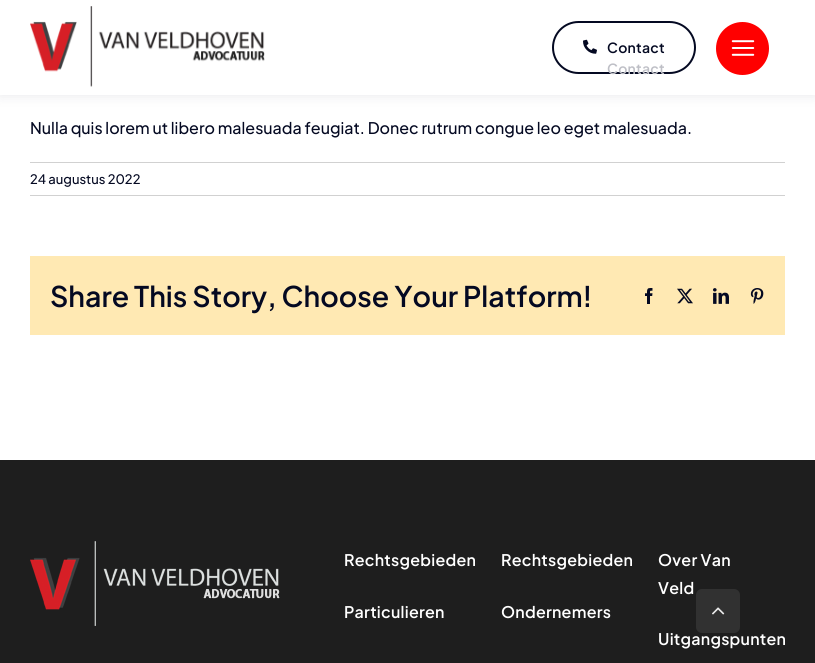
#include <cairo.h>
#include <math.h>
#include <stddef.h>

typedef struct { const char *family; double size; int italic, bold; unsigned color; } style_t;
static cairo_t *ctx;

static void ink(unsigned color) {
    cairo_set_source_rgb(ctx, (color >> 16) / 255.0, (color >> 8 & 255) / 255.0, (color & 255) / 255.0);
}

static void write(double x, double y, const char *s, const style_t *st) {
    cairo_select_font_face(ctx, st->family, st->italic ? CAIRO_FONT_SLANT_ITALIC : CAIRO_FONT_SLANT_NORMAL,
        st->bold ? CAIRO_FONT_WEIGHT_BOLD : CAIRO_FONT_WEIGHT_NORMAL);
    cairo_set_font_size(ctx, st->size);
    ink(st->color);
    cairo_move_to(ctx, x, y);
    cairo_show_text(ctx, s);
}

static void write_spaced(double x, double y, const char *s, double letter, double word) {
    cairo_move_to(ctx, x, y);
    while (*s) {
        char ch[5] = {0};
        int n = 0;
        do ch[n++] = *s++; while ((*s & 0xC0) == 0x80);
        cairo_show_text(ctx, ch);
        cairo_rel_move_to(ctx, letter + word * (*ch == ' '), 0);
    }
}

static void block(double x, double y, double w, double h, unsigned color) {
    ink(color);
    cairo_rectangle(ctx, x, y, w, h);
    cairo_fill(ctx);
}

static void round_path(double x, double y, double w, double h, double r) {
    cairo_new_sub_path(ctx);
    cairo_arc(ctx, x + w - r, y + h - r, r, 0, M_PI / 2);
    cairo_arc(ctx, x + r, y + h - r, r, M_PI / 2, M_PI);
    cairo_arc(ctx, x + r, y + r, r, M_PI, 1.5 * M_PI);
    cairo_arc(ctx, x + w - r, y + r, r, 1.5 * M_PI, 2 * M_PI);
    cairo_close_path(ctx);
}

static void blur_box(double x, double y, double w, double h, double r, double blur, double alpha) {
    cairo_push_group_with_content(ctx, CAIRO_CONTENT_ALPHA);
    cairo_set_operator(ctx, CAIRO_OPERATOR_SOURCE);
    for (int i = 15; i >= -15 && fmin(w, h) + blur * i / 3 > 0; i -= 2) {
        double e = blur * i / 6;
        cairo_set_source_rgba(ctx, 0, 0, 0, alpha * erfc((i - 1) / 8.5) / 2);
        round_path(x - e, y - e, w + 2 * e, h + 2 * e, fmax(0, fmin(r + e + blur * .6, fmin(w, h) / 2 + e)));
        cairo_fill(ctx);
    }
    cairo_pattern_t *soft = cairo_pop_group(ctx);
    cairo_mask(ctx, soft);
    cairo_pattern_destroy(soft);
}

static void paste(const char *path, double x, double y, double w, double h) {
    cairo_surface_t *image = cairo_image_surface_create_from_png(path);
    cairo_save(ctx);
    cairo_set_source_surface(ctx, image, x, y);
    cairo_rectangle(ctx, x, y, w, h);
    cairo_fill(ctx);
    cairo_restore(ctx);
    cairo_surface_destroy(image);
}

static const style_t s1 = {"Plus Jakarta Sans Medium", 16, 0, 0, 0x040922};
static const style_t s2 = {"Plus Jakarta Sans Medium", 13, 0, 0, 0x040922};
static const style_t s3 = {"Plus Jakarta Sans SemiBold", 28.4, 0, 0, 0x040922};

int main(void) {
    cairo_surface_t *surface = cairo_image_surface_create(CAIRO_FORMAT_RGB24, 815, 663);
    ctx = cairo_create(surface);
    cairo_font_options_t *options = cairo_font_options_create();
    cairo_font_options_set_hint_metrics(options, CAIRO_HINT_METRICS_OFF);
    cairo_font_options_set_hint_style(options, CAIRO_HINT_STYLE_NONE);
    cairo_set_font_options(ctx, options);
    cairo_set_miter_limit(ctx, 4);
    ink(0xffffff);
    cairo_paint(ctx);
    ink(0x040820);
    blur_box(0, 0, 815, 95, 0, 6.5, 0.1);
    block(0, 0, 815, 95, 0xffffff);
    paste("pic1.png", 30, 6, 235, 81);
    round_path(553, 22, 142, 51, 25.5);
    ink(0x040922);
    cairo_stroke(ctx);
    paste("pic2.png", 583, 39, 14, 15);
    cairo_select_font_face(ctx, "Plus Jakarta Sans SemiBold", CAIRO_FONT_SLANT_NORMAL, CAIRO_FONT_WEIGHT_NORMAL);
    cairo_set_font_size(ctx, 14);
    write_spaced(607, 53, "Contact", 0.25, 0);
    ink(0xbebfc6);
    write_spaced(607, 74, "Contact", 0.25, 0);
    ink(0xff0000);
    cairo_new_path(ctx);
    cairo_arc(ctx, 742.5, 48.5, 26.5, 0, 2 * M_PI);
    cairo_fill(ctx);
    paste("pic3.png", 731, 40, 24, 16);
    write(30, 134, "Nulla quis lorem ut libero malesuada feugiat. Donec rutrum congue leo eget malesuada.", &s1);
    block(30, 162, 755, 1, 0xd1d1d1);
    block(30, 195, 755, 1, 0xd1d1d1);
    write(30, 184, "24 augustus 2022", &s2);
    block(30, 256, 755, 79, 0xffe9b3);
    write(50, 307, "Share This Story, Choose Your Platform!", &s3);
    paste("pic4.png", 645, 288, 8, 16);
    paste("pic5.png", 677, 288, 16, 16);
    paste("pic6.png", 713, 288, 16, 16);
    paste("pic7.png", 750, 288, 14, 16);
    block(0, 460, 815, 203, 0x1e1e1e);
    paste("pic8.png", 30, 541, 250, 85);
    cairo_set_font_size(ctx, 16);
    ink(0xffffff);
    write_spaced(344, 566, "Rechtsgebieden", 0.25, 0);
    write_spaced(344, 618, "Particulieren", 0.25, 0);
    write_spaced(501, 566, "Rechtsgebieden", 0.25, 0);
    write_spaced(501, 618, "Ondernemers", 0.25, 0);
    write_spaced(658, 566, "Over Van", 0.25, 0);
    write_spaced(658, 594, "Veld", 0.25, 0);
    write_spaced(658, 645, "Uitgangspunten", 0.25, 0);
    cairo_set_source_rgba(ctx, 0.2, 0.2, 0.2, 0.9);
    round_path(696, 589, 44, 44, 6);
    cairo_fill(ctx);
    paste("pic9.png", 712, 607, 13, 8);
    cairo_surface_write_to_png(surface, "screenshot.png");
    cairo_font_options_destroy(options);
    cairo_destroy(ctx);
    cairo_surface_destroy(surface);
    return 0;
}
